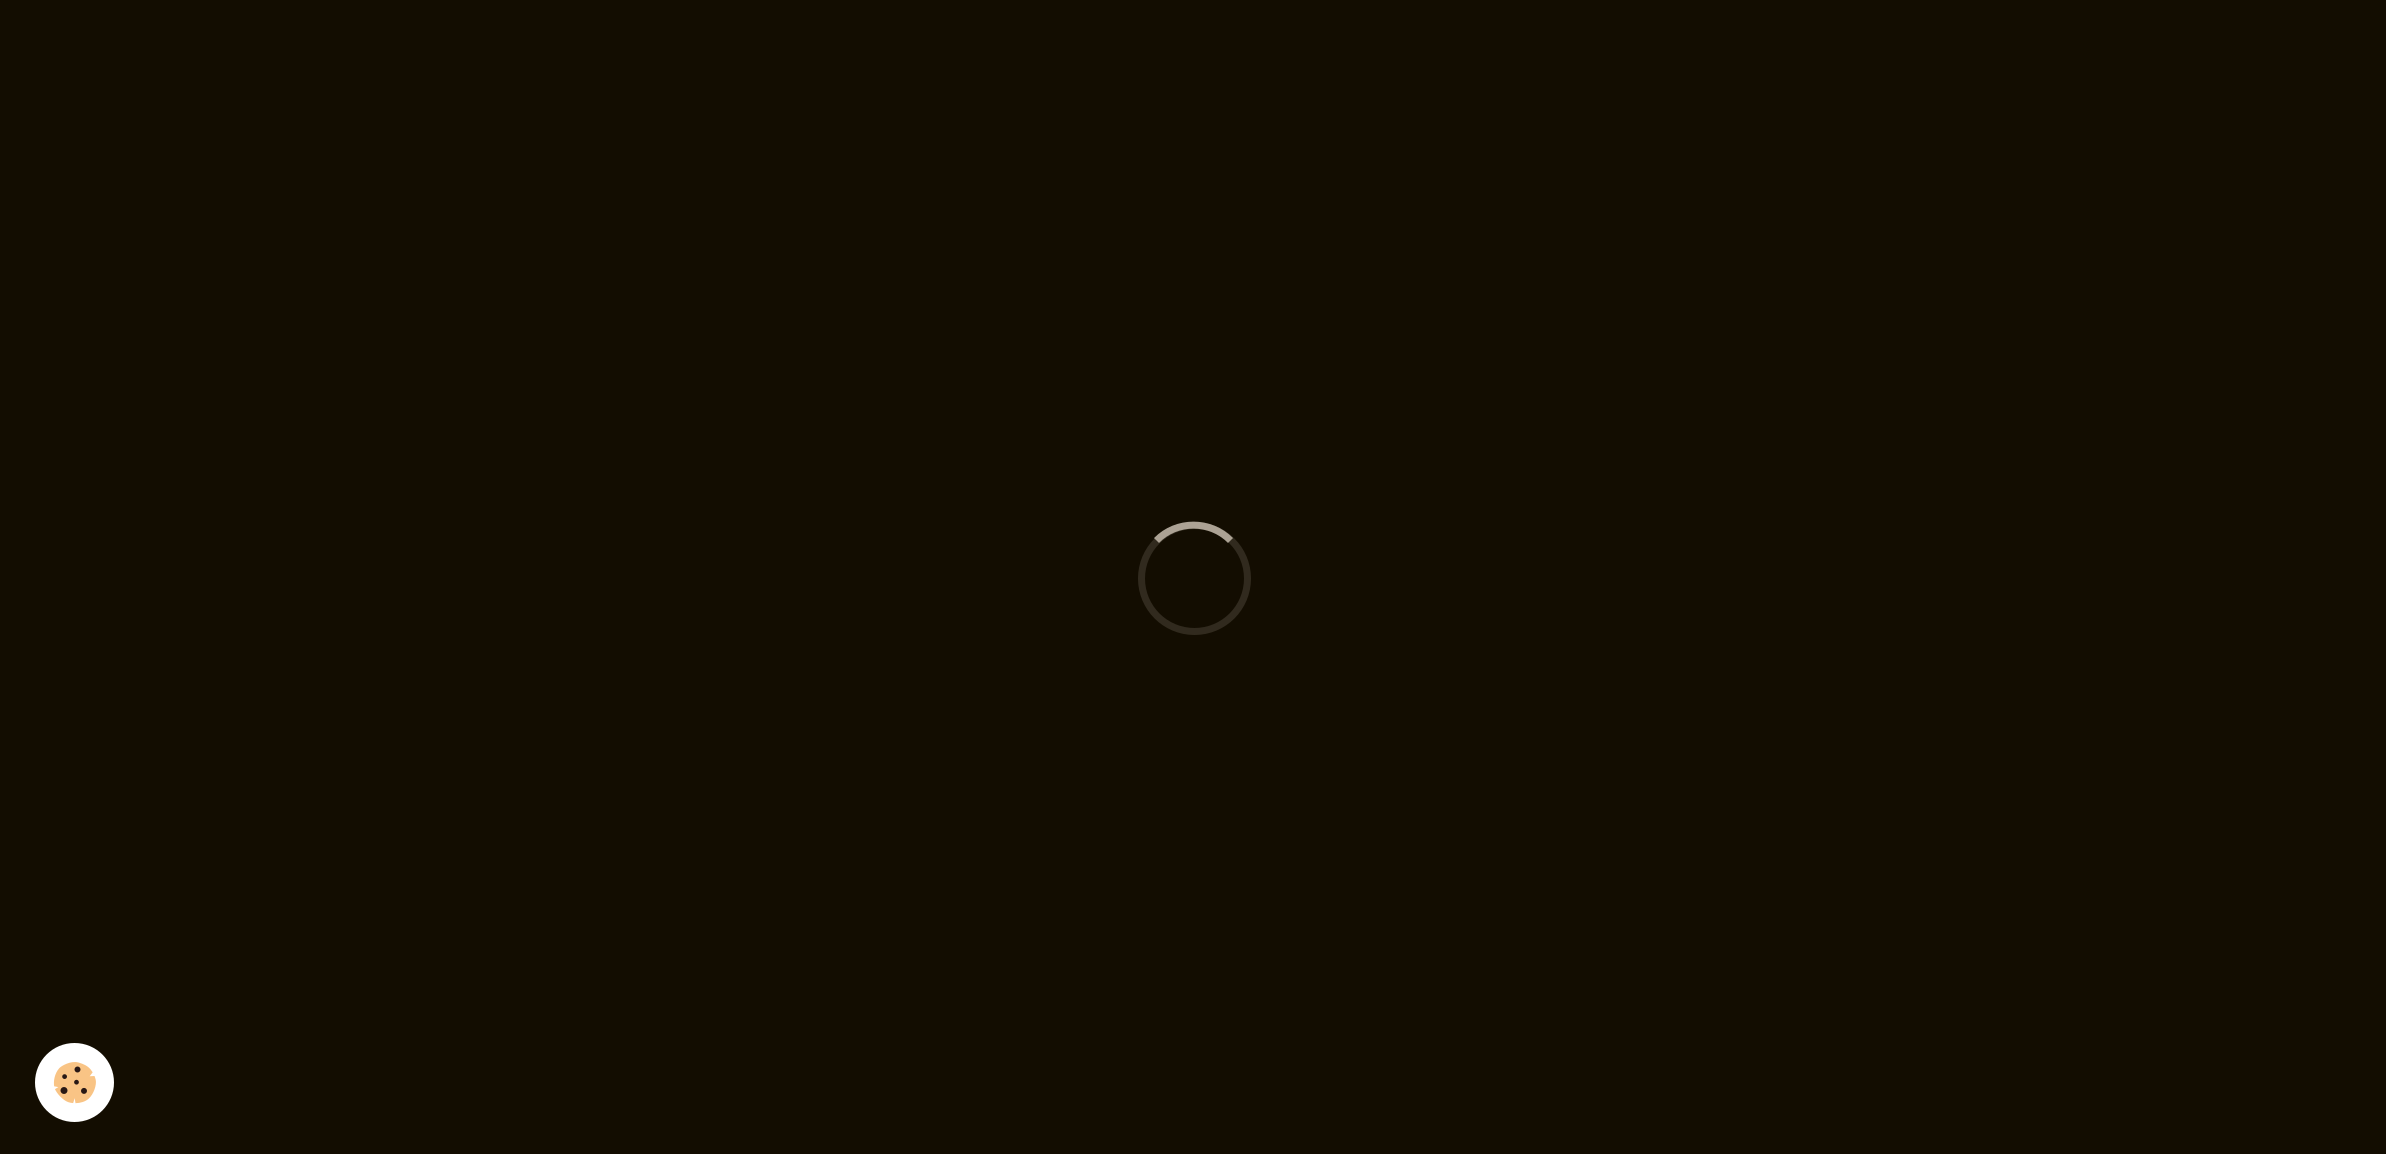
#include <cairo.h>
#include <math.h>
#include <stddef.h>

static cairo_t *ctx;

static void ink(unsigned color) {
    cairo_set_source_rgb(ctx, (color >> 16) / 255.0, (color >> 8 & 255) / 255.0, (color & 255) / 255.0);
}

static void paste(const char *path, double x, double y, double w, double h) {
    cairo_surface_t *image = cairo_image_surface_create_from_png(path);
    cairo_save(ctx);
    cairo_set_source_surface(ctx, image, x, y);
    cairo_rectangle(ctx, x, y, w, h);
    cairo_fill(ctx);
    cairo_restore(ctx);
    cairo_surface_destroy(image);
}

int main(void) {
    cairo_surface_t *surface = cairo_image_surface_create(CAIRO_FORMAT_RGB24, 2386, 1154);
    ctx = cairo_create(surface);
    cairo_font_options_t *options = cairo_font_options_create();
    cairo_font_options_set_hint_metrics(options, CAIRO_HINT_METRICS_OFF);
    cairo_font_options_set_hint_style(options, CAIRO_HINT_STYLE_NONE);
    cairo_set_font_options(ctx, options);
    cairo_set_miter_limit(ctx, 4);
    ink(0x130d01);
    cairo_paint(ctx);
    cairo_new_path(ctx);
    cairo_move_to(ctx, 1156.5, 540.5);
    cairo_curve_to(ctx, 1176.5, 520, 1210.5, 520, 1230.5, 540.5);
    ink(0xaca395);
    cairo_set_line_width(ctx, 7);
    cairo_stroke(ctx);
    cairo_arc(ctx, 1194.5, 578.5, 53, 0, 2 * M_PI);
    cairo_set_source_rgba(ctx, 0.675, 0.639, 0.584, 0.2);
    cairo_stroke(ctx);
    ink(0xffffff);
    cairo_arc(ctx, 74.5, 1082.5, 39.5, 0, 2 * M_PI);
    cairo_fill(ctx);
    paste("pic1.png", 53, 1062, 43, 42);
    cairo_surface_write_to_png(surface, "screenshot.png");
    cairo_font_options_destroy(options);
    cairo_destroy(ctx);
    cairo_surface_destroy(surface);
    return 0;
}
